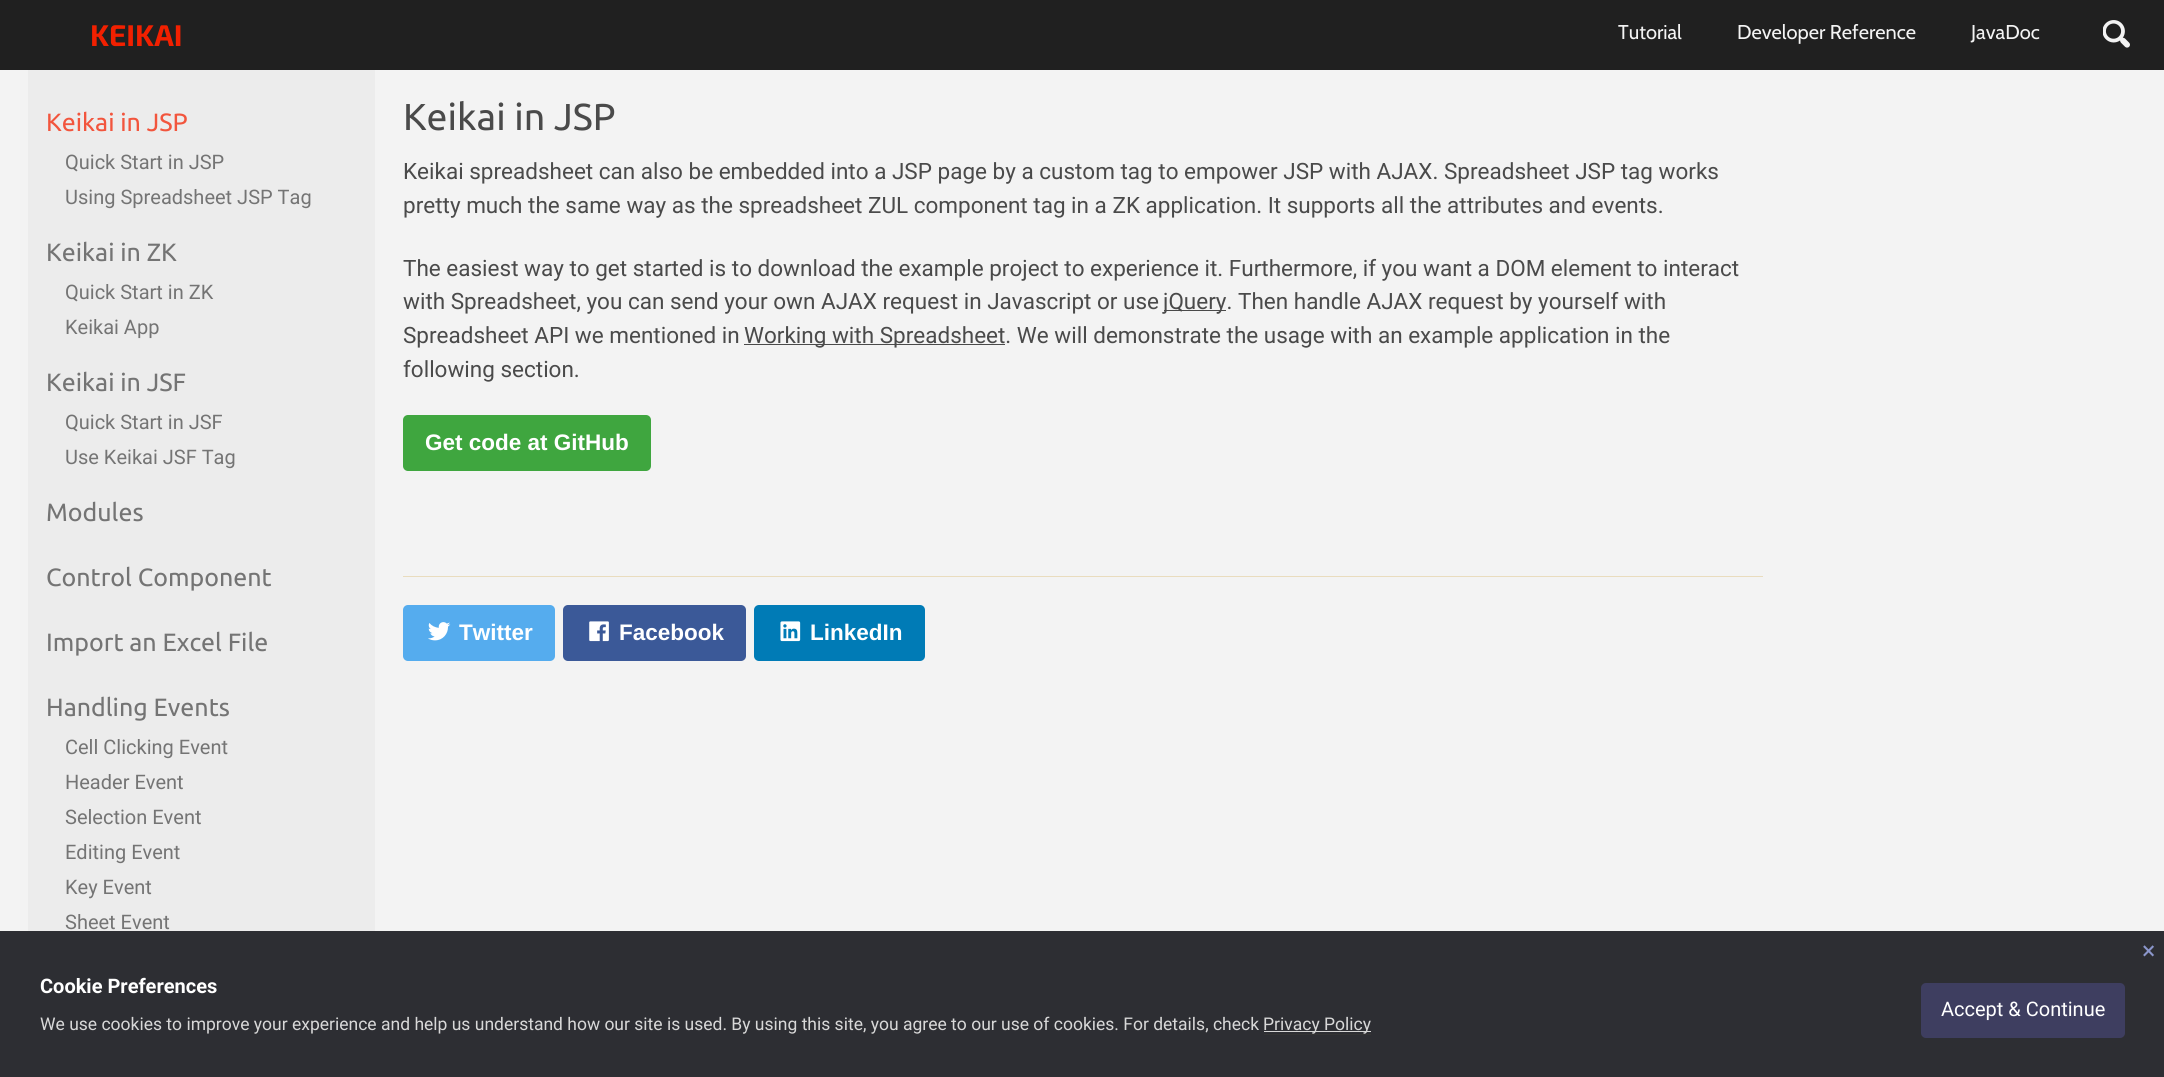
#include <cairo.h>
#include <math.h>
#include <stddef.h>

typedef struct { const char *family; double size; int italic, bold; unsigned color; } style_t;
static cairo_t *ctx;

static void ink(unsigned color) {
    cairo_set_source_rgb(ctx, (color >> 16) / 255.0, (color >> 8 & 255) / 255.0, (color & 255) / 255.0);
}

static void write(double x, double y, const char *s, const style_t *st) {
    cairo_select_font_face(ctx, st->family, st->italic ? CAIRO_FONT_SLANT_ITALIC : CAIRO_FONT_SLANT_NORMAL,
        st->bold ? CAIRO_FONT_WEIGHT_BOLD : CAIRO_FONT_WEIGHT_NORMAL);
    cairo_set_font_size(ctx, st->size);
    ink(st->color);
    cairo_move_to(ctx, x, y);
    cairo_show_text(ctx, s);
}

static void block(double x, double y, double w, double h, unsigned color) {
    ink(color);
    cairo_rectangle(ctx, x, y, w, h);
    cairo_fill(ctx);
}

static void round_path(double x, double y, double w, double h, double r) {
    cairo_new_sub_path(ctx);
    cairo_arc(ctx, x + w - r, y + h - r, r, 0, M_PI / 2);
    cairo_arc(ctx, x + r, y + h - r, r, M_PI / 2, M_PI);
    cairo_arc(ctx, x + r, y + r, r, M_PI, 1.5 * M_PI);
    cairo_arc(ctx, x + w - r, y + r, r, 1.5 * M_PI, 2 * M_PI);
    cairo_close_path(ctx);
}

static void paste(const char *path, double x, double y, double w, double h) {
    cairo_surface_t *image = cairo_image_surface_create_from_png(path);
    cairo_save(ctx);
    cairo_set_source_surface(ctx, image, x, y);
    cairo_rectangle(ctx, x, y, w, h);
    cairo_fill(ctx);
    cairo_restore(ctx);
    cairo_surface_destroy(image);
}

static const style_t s1 = {"Exo 2", 30, 0, 1, 0xf22000};
static const style_t s2 = {"Cabin", 20, 0, 0, 0xf3f3f3};
static const style_t s3 = {"Ubuntu", 25, 0, 0, 0xf2553d};
static const style_t s4 = {"Roboto", 20, 0, 0, 0x747474};
static const style_t s5 = {"Ubuntu", 25, 0, 0, 0x747474};
static const style_t s6 = {"Ubuntu", 37.5, 0, 0, 0x4a4a4a};
static const style_t s7 = {"Roboto", 22.5, 0, 0, 0x4a4a4a};
static const style_t s8 = {"Liberation Sans", 22.5, 0, 1, 0xffffff};
static const style_t s9 = {"Roboto", 25, 0, 0, 0x8b96cb};
static const style_t s10 = {"Roboto", 20, 0, 1, 0xffffff};
static const style_t s11 = {"Roboto", 17.5, 0, 0, 0xd8d8d8};
static const style_t s12 = {"Roboto", 20, 0, 0, 0xffffff};

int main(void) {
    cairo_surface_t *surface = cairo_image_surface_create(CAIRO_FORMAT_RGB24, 2164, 1077);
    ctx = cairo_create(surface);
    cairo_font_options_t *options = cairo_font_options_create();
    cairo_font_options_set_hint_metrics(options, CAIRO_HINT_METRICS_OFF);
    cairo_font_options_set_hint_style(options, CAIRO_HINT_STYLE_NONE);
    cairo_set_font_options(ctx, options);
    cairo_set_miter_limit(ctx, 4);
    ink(0xf3f3f3);
    cairo_paint(ctx);
    block(0, 931, 2164, 146, 0x2d2e33);
    block(0, 0, 2164, 70, 0x202020);
    write(90, 46, "KEIKAI", &s1);
    write(1618, 39, "Tutorial", &s2);
    write(1737, 39, "Developer Reference", &s2);
    write(1971, 39, "JavaDoc", &s2);
    paste("pic1.png", 2103, 20, 27, 28);
    block(28, 70, 347, 861, 0xececec);
    write(46, 131, "Keikai in JSP", &s3);
    write(65, 169, "Quick Start in JSP", &s4);
    write(65, 204, "Using Spreadsheet JSP Tag", &s4);
    write(46, 261, "Keikai in ZK", &s5);
    write(65, 299, "Quick Start in ZK", &s4);
    write(65, 334, "Keikai App", &s4);
    write(46, 391, "Keikai in JSF", &s5);
    write(65, 429, "Quick Start in JSF", &s4);
    write(65, 464, "Use Keikai JSF Tag", &s4);
    write(46, 521, "Modules", &s5);
    write(46, 586, "Control Component", &s5);
    write(46, 651, "Import an Excel File", &s5);
    write(46, 716, "Handling Events", &s5);
    write(65, 754, "Cell Clicking Event", &s4);
    write(65, 789, "Header Event", &s4);
    write(65, 824, "Selection Event", &s4);
    write(65, 859, "Editing Event", &s4);
    write(65, 894, "Key Event", &s4);
    write(65, 929, "Sheet Event", &s4);
    write(403, 130, "Keikai in JSP", &s6);
    write(403, 179, "Keikai spreadsheet can also be embedded into a JSP page by a custom tag to empower JSP with AJAX. Spreadsheet JSP tag works", &s7);
    write(403, 213, "pretty much the same way as the spreadsheet ZUL component tag in a ZK application. It supports all the attributes and events.", &s7);
    write(403, 276, "The easiest way to get started is to download the example project to experience it. Furthermore, if you want a DOM element to interact", &s7);
    write(403, 309, "with Spreadsheet, you can send your own AJAX request in Javascript or use", &s7);
    block(1164, 310, 62, 1, 0x4a4a4a);
    write(1163, 309, "jQuery. Then handle AJAX request by yourself with", &s7);
    write(403, 343, "Spreadsheet API we mentioned in", &s7);
    block(744, 344, 261, 1, 0x4a4a4a);
    write(744, 343, "Working with Spreadsheet. We will demonstrate the usage with an example application in the", &s7);
    write(403, 377, "following section.", &s7);
    ink(0x3fa63f);
    round_path(403, 415, 248, 56, 5);
    cairo_fill(ctx);
    write(425, 450, "Get code at GitHub", &s8);
    block(403, 576, 1360, 1, 0xe9dcbe);
    ink(0x55acee);
    round_path(403, 605, 152, 56, 5);
    cairo_fill(ctx);
    paste("pic2.png", 428, 622, 23, 19);
    write(459, 640, "Twitter", &s8);
    ink(0x3b5998);
    round_path(563, 605, 183, 56, 5);
    cairo_fill(ctx);
    paste("pic3.png", 589, 621, 20, 21);
    write(619, 640, "Facebook", &s8);
    ink(0x007bb6);
    round_path(754, 605, 171, 56, 5);
    cairo_fill(ctx);
    paste("pic4.png", 780, 621, 21, 21);
    write(810, 640, "LinkedIn", &s8);
    write(2142, 959, "×", &s9);
    write(40, 993, "Cookie Preferences", &s10);
    write(40, 1030, "We use cookies to improve your experience and help us understand how our site is used. By using this site, you agree to our use of cookies. For details, check", &s11);
    block(1264, 1031, 107, 1, 0xd8d8d8);
    write(1263, 1030, "Privacy Policy", &s11);
    block(1264, 1034, 107, 1, 0x343434);
    ink(0x3e3e60);
    round_path(1921, 983, 204, 55, 5);
    cairo_fill(ctx);
    write(1941, 1016, "Accept & Continue", &s12);
    cairo_surface_write_to_png(surface, "screenshot.png");
    cairo_font_options_destroy(options);
    cairo_destroy(ctx);
    cairo_surface_destroy(surface);
    return 0;
}
